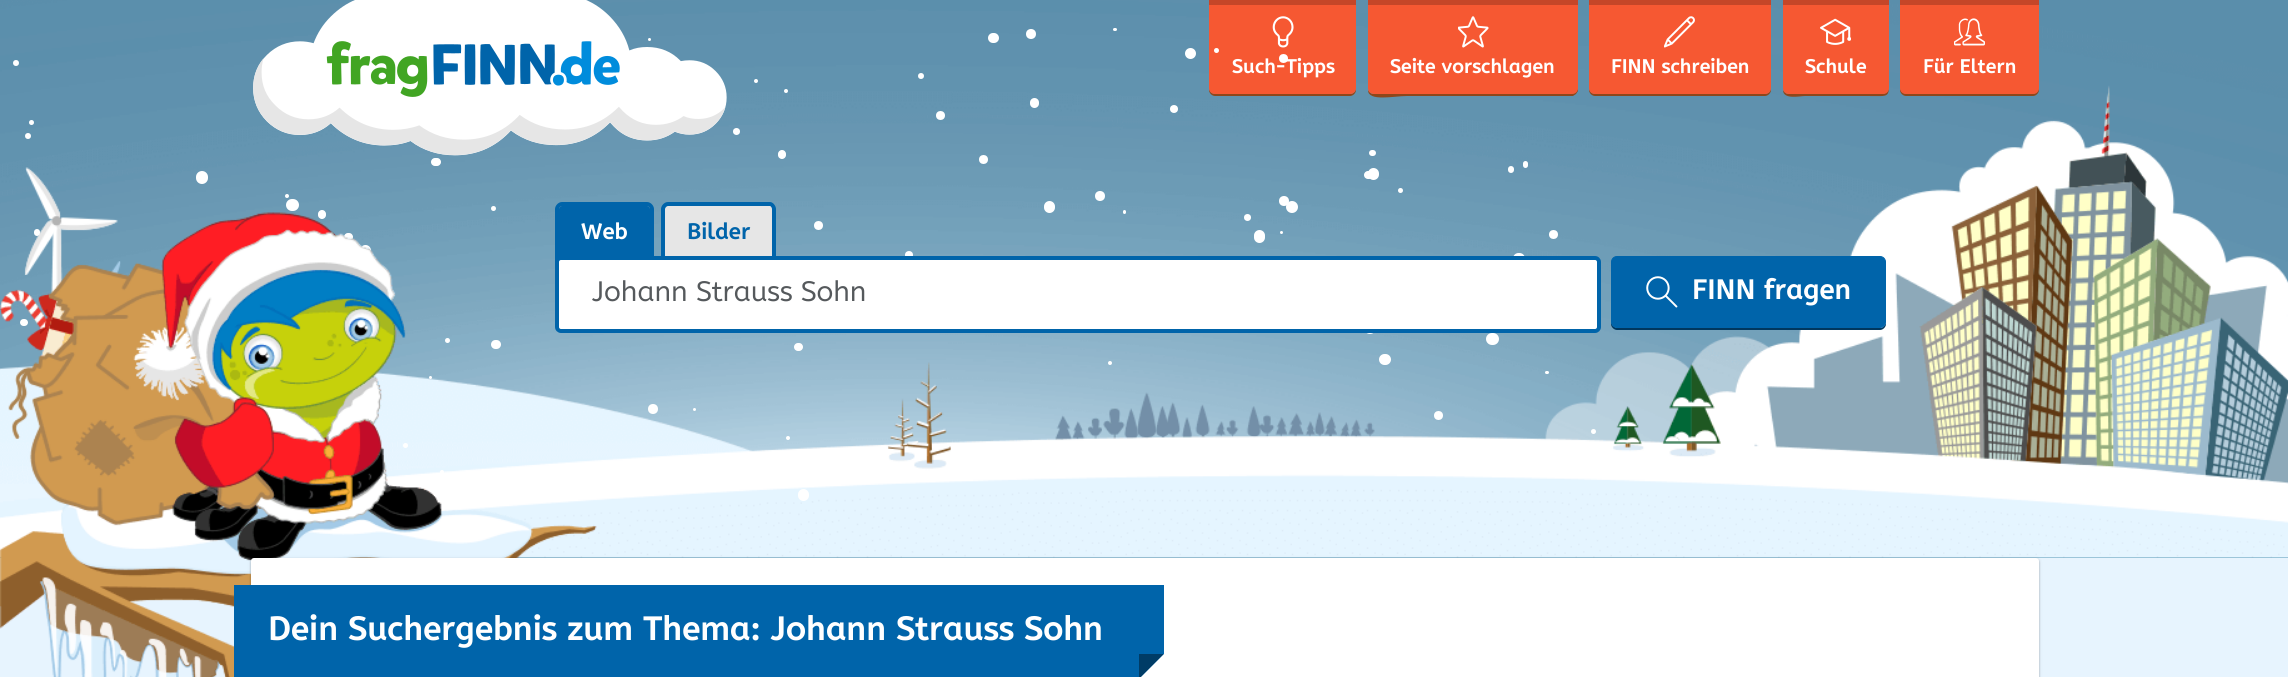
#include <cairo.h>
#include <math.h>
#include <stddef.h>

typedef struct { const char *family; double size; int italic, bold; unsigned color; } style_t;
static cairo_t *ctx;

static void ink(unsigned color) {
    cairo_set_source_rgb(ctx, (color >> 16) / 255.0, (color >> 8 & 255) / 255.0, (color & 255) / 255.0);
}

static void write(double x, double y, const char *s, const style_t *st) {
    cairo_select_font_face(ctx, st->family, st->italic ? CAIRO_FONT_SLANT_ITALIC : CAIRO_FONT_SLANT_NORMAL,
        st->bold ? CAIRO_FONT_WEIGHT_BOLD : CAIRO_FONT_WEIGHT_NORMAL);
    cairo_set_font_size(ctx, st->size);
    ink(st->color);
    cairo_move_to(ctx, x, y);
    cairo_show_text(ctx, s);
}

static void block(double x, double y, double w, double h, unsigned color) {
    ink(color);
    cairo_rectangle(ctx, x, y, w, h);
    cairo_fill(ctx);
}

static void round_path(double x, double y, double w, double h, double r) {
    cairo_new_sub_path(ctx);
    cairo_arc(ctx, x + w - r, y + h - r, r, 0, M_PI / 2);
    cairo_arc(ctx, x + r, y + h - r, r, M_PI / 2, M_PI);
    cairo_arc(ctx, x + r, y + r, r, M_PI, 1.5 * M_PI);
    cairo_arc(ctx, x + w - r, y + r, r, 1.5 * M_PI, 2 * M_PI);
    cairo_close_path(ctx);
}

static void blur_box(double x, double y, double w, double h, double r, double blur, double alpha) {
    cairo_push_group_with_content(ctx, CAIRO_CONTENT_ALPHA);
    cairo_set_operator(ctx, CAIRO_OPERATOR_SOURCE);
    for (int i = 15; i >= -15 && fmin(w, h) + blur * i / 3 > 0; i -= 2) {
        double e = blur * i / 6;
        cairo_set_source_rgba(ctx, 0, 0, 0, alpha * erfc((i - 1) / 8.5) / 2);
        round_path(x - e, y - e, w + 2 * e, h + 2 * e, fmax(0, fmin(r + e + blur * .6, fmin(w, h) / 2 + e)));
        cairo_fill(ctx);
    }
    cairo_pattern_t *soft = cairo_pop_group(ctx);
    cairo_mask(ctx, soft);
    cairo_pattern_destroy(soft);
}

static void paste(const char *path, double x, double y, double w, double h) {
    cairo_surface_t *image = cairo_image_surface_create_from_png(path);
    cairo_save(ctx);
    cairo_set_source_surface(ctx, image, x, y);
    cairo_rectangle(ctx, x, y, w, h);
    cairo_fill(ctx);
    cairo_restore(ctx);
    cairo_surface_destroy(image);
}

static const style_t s1 = {"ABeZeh", 19.75, 0, 1, 0xffffff};
static const style_t s2 = {"ABeZeh", 22.5, 0, 1, 0xffffff};
static const style_t s3 = {"ABeZeh", 22.5, 0, 1, 0x0064aa};
static const style_t s4 = {"ABeZeh", 28.1, 0, 0, 0x55595c};
static const style_t s5 = {"ABeZeh", 28.1, 0, 1, 0xffffff};
static const style_t s6 = {"ABeZeh", 33.75, 0, 1, 0xffffff};

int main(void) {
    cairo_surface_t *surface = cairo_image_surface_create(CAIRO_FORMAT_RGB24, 2288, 677);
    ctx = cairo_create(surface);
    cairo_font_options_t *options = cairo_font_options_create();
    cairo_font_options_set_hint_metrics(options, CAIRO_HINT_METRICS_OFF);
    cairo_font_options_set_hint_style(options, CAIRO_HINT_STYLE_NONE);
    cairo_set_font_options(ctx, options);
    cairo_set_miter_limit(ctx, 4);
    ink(0xe7f4fe);
    cairo_paint(ctx);
    block(0, 557, 2288, 1, 0x5395b3);
    paste("pic1.png", 0, 0, 2288, 558);
    paste("pic5.png", 253, 0, 474, 156);
    ink(0xffffff);
    cairo_arc(ctx, 649.5, 39.5, 1.5, 0, 2 * M_PI);
    cairo_fill(ctx);
    round_path(988, 33, 11, 10, 5);
    cairo_fill(ctx);
    cairo_arc(ctx, 1031, 34, 5, 0, 2 * M_PI);
    cairo_fill(ctx);
    round_path(1113, 28, 4, 3, 1.5);
    cairo_fill(ctx);
    cairo_arc(ctx, 1190.5, 53.5, 5.5, 0, 2 * M_PI);
    cairo_fill(ctx);
    ink(0x8e471b);
    cairo_new_path(ctx);
    cairo_move_to(ctx, 1209, 89);
    cairo_line_to(ctx, 1209, 90);
    cairo_curve_to(ctx, 1209, 93, 1212, 96, 1215, 96);
    cairo_line_to(ctx, 1350, 96);
    cairo_curve_to(ctx, 1353, 96, 1356, 93, 1356, 90);
    cairo_line_to(ctx, 1356, 89);
    cairo_curve_to(ctx, 1355, 92, 1353, 94, 1350, 94);
    cairo_line_to(ctx, 1216, 94);
    cairo_curve_to(ctx, 1212, 94, 1210, 92, 1209, 89);
    cairo_close_path(ctx);
    cairo_fill(ctx);
    ink(0xf65832);
    cairo_new_path(ctx);
    cairo_move_to(ctx, 1209, -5);
    cairo_line_to(ctx, 1356, -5);
    cairo_line_to(ctx, 1356, 88);
    cairo_curve_to(ctx, 1356, 91.5, 1353.5, 94, 1350, 94);
    cairo_line_to(ctx, 1215, 94);
    cairo_curve_to(ctx, 1211.5, 94, 1209, 91.5, 1209, 88);
    cairo_close_path(ctx);
    cairo_fill(ctx);
    ink(0xffffff);
    cairo_arc(ctx, 1216.5, 50.5, 2.5, 0, 2 * M_PI);
    cairo_fill(ctx);
    cairo_arc(ctx, 16, 63, 3, 0, 2 * M_PI);
    cairo_fill(ctx);
    cairo_arc(ctx, 1283.5, 58.5, 4.5, 0, 2 * M_PI);
    cairo_fill(ctx);
    cairo_arc(ctx, 921, 76, 3, 0, 2 * M_PI);
    cairo_fill(ctx);
    cairo_arc(ctx, 756, 81, 2, 0, 2 * M_PI);
    cairo_fill(ctx);
    cairo_arc(ctx, 581, 86, 3, 0, 2 * M_PI);
    cairo_fill(ctx);
    cairo_arc(ctx, 786, 91, 2, 0, 2 * M_PI);
    cairo_fill(ctx);
    round_path(1030, 98, 9, 10, 4.5);
    cairo_fill(ctx);
    cairo_arc(ctx, 1174, 109, 4, 0, 2 * M_PI);
    cairo_fill(ctx);
    cairo_arc(ctx, 940.5, 115.5, 4.5, 0, 2 * M_PI);
    cairo_fill(ctx);
    cairo_arc(ctx, 31.5, 122.5, 2.5, 0, 2 * M_PI);
    cairo_fill(ctx);
    cairo_arc(ctx, 736.5, 131.5, 3.5, 0, 2 * M_PI);
    cairo_fill(ctx);
    cairo_arc(ctx, 28, 136, 3, 0, 2 * M_PI);
    cairo_fill(ctx);
    round_path(778, 150, 8, 9, 4);
    cairo_fill(ctx);
    round_path(1369, 150, 7, 6, 3);
    cairo_fill(ctx);
    round_path(431, 158, 10, 8, 4);
    cairo_fill(ctx);
    cairo_arc(ctx, 983.5, 159.5, 4.5, 0, 2 * M_PI);
    cairo_fill(ctx);
    round_path(1523, 161, 5, 7, 2.5);
    cairo_fill(ctx);
    round_path(196, 171, 12, 13, 6);
    cairo_fill(ctx);
    round_path(1364, 171, 9, 8, 4);
    cairo_fill(ctx);
    round_path(1368, 168, 11, 12, 5.5);
    cairo_fill(ctx);
    round_path(1508, 166, 6, 7, 3);
    cairo_fill(ctx);
    cairo_arc(ctx, 1400.5, 190.5, 2.5, 0, 2 * M_PI);
    cairo_fill(ctx);
    cairo_arc(ctx, 287, 196, 2, 0, 2 * M_PI);
    cairo_fill(ctx);
    cairo_arc(ctx, 1100, 196, 5, 0, 2 * M_PI);
    cairo_fill(ctx);
    cairo_arc(ctx, 1292, 207, 6, 0, 2 * M_PI);
    cairo_fill(ctx);
    cairo_arc(ctx, 1284, 201, 5, 0, 2 * M_PI);
    cairo_fill(ctx);
    round_path(286, 199, 13, 12, 6);
    cairo_fill(ctx);
    cairo_arc(ctx, 493.5, 208.5, 2.5, 0, 2 * M_PI);
    cairo_fill(ctx);
    round_path(1044, 201, 11, 12, 5.5);
    cairo_fill(ctx);
    round_path(318, 210, 8, 9, 4);
    cairo_fill(ctx);
    round_path(1123, 210, 3, 4, 1.5);
    cairo_fill(ctx);
    cairo_arc(ctx, 1247.5, 217.5, 3.5, 0, 2 * M_PI);
    cairo_fill(ctx);
    cairo_arc(ctx, 818.5, 225.5, 4.5, 0, 2 * M_PI);
    cairo_fill(ctx);
    paste("pic2.png", 33, 224, 30, 184);
    paste("pic4.png", 110, 261, 11, 13);
    paste("pic3.png", 24, 167, 94, 108);
    round_path(34, 229, 6, 7, 3);
    cairo_fill(ctx);
    round_path(1254, 230, 11, 13, 5.5);
    cairo_fill(ctx);
    cairo_arc(ctx, 1281.5, 232.5, 1.5, 0, 2 * M_PI);
    cairo_fill(ctx);
    cairo_arc(ctx, 1553.5, 234.5, 4.5, 0, 2 * M_PI);
    cairo_fill(ctx);
    round_path(344, 233, 9, 8, 4);
    cairo_fill(ctx);
    round_path(360, 245, 11, 13, 5.5);
    cairo_fill(ctx);
    cairo_arc(ctx, 909, 255, 4, 0, 2 * M_PI);
    cairo_fill(ctx);
    round_path(1513, 253, 12, 11, 5.5);
    cairo_fill(ctx);
    round_path(20, 319, 8, 7, 3.5);
    cairo_fill(ctx);
    round_path(1364, 321, 12, 13, 6);
    cairo_fill(ctx);
    cairo_arc(ctx, 447.5, 340.5, 2.5, 0, 2 * M_PI);
    cairo_fill(ctx);
    round_path(491, 340, 10, 9, 4.5);
    cairo_fill(ctx);
    round_path(794, 343, 9, 8, 4);
    cairo_fill(ctx);
    round_path(1486, 333, 13, 12, 6);
    cairo_fill(ctx);
    cairo_arc(ctx, 1110, 363, 2, 0, 2 * M_PI);
    cairo_fill(ctx);
    round_path(1379, 354, 12, 11, 5.5);
    cairo_fill(ctx);
    round_path(1545, 371, 4, 3, 1.5);
    cairo_fill(ctx);
    cairo_arc(ctx, 430.5, 377.5, 1.5, 0, 2 * M_PI);
    cairo_fill(ctx);
    cairo_arc(ctx, 653, 409, 5, 0, 2 * M_PI);
    cairo_fill(ctx);
    cairo_arc(ctx, 694.5, 409.5, 1.5, 0, 2 * M_PI);
    cairo_fill(ctx);
    cairo_arc(ctx, 1438.5, 415.5, 4.5, 0, 2 * M_PI);
    cairo_fill(ctx);
    cairo_arc(ctx, 1593.5, 431.5, 2.5, 0, 2 * M_PI);
    cairo_fill(ctx);
    cairo_arc(ctx, 788, 438, 2, 0, 2 * M_PI);
    cairo_fill(ctx);
    cairo_arc(ctx, 405.5, 445.5, 2.5, 0, 2 * M_PI);
    cairo_fill(ctx);
    cairo_arc(ctx, 442, 472, 2, 0, 2 * M_PI);
    cairo_fill(ctx);
    round_path(798, 489, 11, 12, 5.5);
    cairo_fill(ctx);
    block(1209, 0, 147, 5, 0xc54628);
    paste("pic6.png", 1272, 16, 22, 32);
    write(1232, 73, "Such-Tipps", &s1);
    ink(0x8e471b);
    cairo_new_path(ctx);
    cairo_move_to(ctx, 1368, 90);
    cairo_curve_to(ctx, 1368, 102, 1394, 96, 1407, 96);
    cairo_line_to(ctx, 1573, 96);
    cairo_line_to(ctx, 1576, 94);
    cairo_line_to(ctx, 1578, 91);
    cairo_line_to(ctx, 1578, -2);
    cairo_line_to(ctx, 1578, 87);
    cairo_curve_to(ctx, 1578, 91, 1574, 94, 1571, 94);
    cairo_line_to(ctx, 1374, 94);
    cairo_curve_to(ctx, 1371, 94, 1369, 92, 1368, 90);
    cairo_close_path(ctx);
    cairo_fill(ctx);
    ink(0xf65832);
    cairo_new_path(ctx);
    cairo_move_to(ctx, 1368, -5);
    cairo_line_to(ctx, 1578, -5);
    cairo_line_to(ctx, 1578, 88);
    cairo_curve_to(ctx, 1578, 91.5, 1575.5, 94, 1572, 94);
    cairo_line_to(ctx, 1374, 94);
    cairo_curve_to(ctx, 1370.5, 94, 1368, 91.5, 1368, 88);
    cairo_close_path(ctx);
    cairo_fill(ctx);
    block(1368, 0, 210, 5, 0xc54628);
    paste("pic7.png", 1458, 16, 31, 32);
    write(1390, 73, "Seite vorschlagen", &s1);
    ink(0x8e471b);
    cairo_new_path(ctx);
    cairo_move_to(ctx, 1589, 89);
    cairo_line_to(ctx, 1589, 90);
    cairo_curve_to(ctx, 1589, 93, 1592, 96, 1595, 96);
    cairo_line_to(ctx, 1765, 96);
    cairo_curve_to(ctx, 1768, 96, 1771, 93, 1771, 90);
    cairo_line_to(ctx, 1771, 89);
    cairo_curve_to(ctx, 1770, 92, 1768, 94, 1764, 94);
    cairo_line_to(ctx, 1596, 94);
    cairo_curve_to(ctx, 1592, 94, 1590, 92, 1589, 89);
    cairo_close_path(ctx);
    cairo_fill(ctx);
    ink(0xf65832);
    cairo_new_path(ctx);
    cairo_move_to(ctx, 1589, -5);
    cairo_line_to(ctx, 1771, -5);
    cairo_line_to(ctx, 1771, 88);
    cairo_curve_to(ctx, 1771, 91.5, 1768.5, 94, 1765, 94);
    cairo_line_to(ctx, 1595, 94);
    cairo_curve_to(ctx, 1591.5, 94, 1589, 91.5, 1589, 88);
    cairo_close_path(ctx);
    cairo_fill(ctx);
    block(1589, 0, 182, 5, 0xc54628);
    paste("pic8.png", 1664, 16, 31, 32);
    write(1611, 73, "FINN schreiben", &s1);
    ink(0x8e471b);
    cairo_new_path(ctx);
    cairo_move_to(ctx, 1783, 90);
    cairo_curve_to(ctx, 1783, 100, 1800, 96, 1805, 96);
    cairo_line_to(ctx, 1867, 96);
    cairo_curve_to(ctx, 1891, 96, 1889, 99, 1889, 75);
    cairo_line_to(ctx, 1889, -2);
    cairo_line_to(ctx, 1889, 87);
    cairo_curve_to(ctx, 1889, 91, 1886, 94, 1882, 94);
    cairo_line_to(ctx, 1789, 94);
    cairo_curve_to(ctx, 1786, 94, 1784, 92, 1783, 90);
    cairo_close_path(ctx);
    cairo_fill(ctx);
    ink(0xf65832);
    cairo_new_path(ctx);
    cairo_move_to(ctx, 1783, -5);
    cairo_line_to(ctx, 1889, -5);
    cairo_line_to(ctx, 1889, 88);
    cairo_curve_to(ctx, 1889, 91.5, 1886.5, 94, 1883, 94);
    cairo_line_to(ctx, 1789, 94);
    cairo_curve_to(ctx, 1785.5, 94, 1783, 91.5, 1783, 88);
    cairo_close_path(ctx);
    cairo_fill(ctx);
    block(1783, 0, 106, 5, 0xc54628);
    paste("pic9.png", 1820, 18, 31, 27);
    write(1805, 73, "Schule", &s1);
    ink(0x8e471b);
    cairo_new_path(ctx);
    cairo_move_to(ctx, 1900, 87);
    cairo_line_to(ctx, 1900, 90);
    cairo_curve_to(ctx, 1900, 93, 1903, 96, 1906, 96);
    cairo_line_to(ctx, 2033, 96);
    cairo_curve_to(ctx, 2036, 96, 2039, 93, 2039, 90);
    cairo_line_to(ctx, 2039, -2);
    cairo_line_to(ctx, 2039, 87);
    cairo_curve_to(ctx, 2039, 91, 2036, 94, 2032, 94);
    cairo_line_to(ctx, 1907, 94);
    cairo_curve_to(ctx, 1903, 94, 1900, 91, 1900, 87);
    cairo_close_path(ctx);
    cairo_fill(ctx);
    ink(0xf65832);
    cairo_new_path(ctx);
    cairo_move_to(ctx, 1900, -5);
    cairo_line_to(ctx, 2039, -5);
    cairo_line_to(ctx, 2039, 88);
    cairo_curve_to(ctx, 2039, 91.5, 2036.5, 94, 2033, 94);
    cairo_line_to(ctx, 1906, 94);
    cairo_curve_to(ctx, 1902.5, 94, 1900, 91.5, 1900, 88);
    cairo_close_path(ctx);
    cairo_fill(ctx);
    block(1900, 0, 139, 5, 0xc54628);
    paste("pic10.png", 1954, 18, 31, 28);
    write(1923, 73, "Für Eltern", &s1);
    paste("pic12.png", 0, 212, 597, 465);
    ink(0x0064aa);
    cairo_new_path(ctx);
    cairo_move_to(ctx, 562, 206);
    cairo_line_to(ctx, 647, 206);
    cairo_curve_to(ctx, 648.5, 206, 650, 207.5, 650, 209);
    cairo_line_to(ctx, 650, 263);
    cairo_line_to(ctx, 559, 263);
    cairo_line_to(ctx, 559, 209);
    cairo_curve_to(ctx, 559, 207.5, 560.5, 206, 562, 206);
    cairo_close_path(ctx);
    cairo_fill(ctx);
    cairo_set_fill_rule(ctx, CAIRO_FILL_RULE_EVEN_ODD);
    cairo_new_path(ctx);
    cairo_move_to(ctx, 562, 202);
    cairo_line_to(ctx, 647, 202);
    cairo_curve_to(ctx, 651, 202, 654, 206, 654, 209);
    cairo_line_to(ctx, 654, 262);
    cairo_line_to(ctx, 555, 262);
    cairo_line_to(ctx, 555, 209);
    cairo_curve_to(ctx, 555, 206, 558, 202, 562, 202);
    cairo_close_path(ctx);
    cairo_move_to(ctx, 562, 206);
    cairo_line_to(ctx, 647, 206);
    cairo_curve_to(ctx, 649, 206, 650, 208, 650, 209);
    cairo_line_to(ctx, 650, 262);
    cairo_line_to(ctx, 559, 262);
    cairo_line_to(ctx, 559, 209);
    cairo_curve_to(ctx, 559, 208, 560, 206, 562, 206);
    cairo_close_path(ctx);
    cairo_fill(ctx);
    write(581, 239, "Web", &s2);
    ink(0xe6e6e6);
    cairo_new_path(ctx);
    cairo_move_to(ctx, 668, 206);
    cairo_line_to(ctx, 770, 206);
    cairo_curve_to(ctx, 771.5, 206, 773, 207.5, 773, 209);
    cairo_line_to(ctx, 773, 263);
    cairo_line_to(ctx, 665, 263);
    cairo_line_to(ctx, 665, 209);
    cairo_curve_to(ctx, 665, 207.5, 666.5, 206, 668, 206);
    cairo_close_path(ctx);
    cairo_fill(ctx);
    ink(0x0064aa);
    cairo_new_path(ctx);
    cairo_move_to(ctx, 668, 202);
    cairo_line_to(ctx, 770, 202);
    cairo_curve_to(ctx, 773, 202, 776, 206, 776, 209);
    cairo_line_to(ctx, 776, 262);
    cairo_line_to(ctx, 661, 262);
    cairo_line_to(ctx, 661, 209);
    cairo_curve_to(ctx, 661, 206, 664, 202, 668, 202);
    cairo_close_path(ctx);
    cairo_move_to(ctx, 668, 206);
    cairo_line_to(ctx, 770, 206);
    cairo_curve_to(ctx, 771, 206, 772, 208, 772, 209);
    cairo_line_to(ctx, 772, 262);
    cairo_line_to(ctx, 665, 262);
    cairo_line_to(ctx, 665, 209);
    cairo_curve_to(ctx, 665, 208, 666, 206, 668, 206);
    cairo_close_path(ctx);
    cairo_fill(ctx);
    write(687, 239, "Bilder", &s3);
    ink(0xffffff);
    round_path(557, 258, 1042, 73, 4);
    cairo_fill_preserve(ctx);
    ink(0x0064aa);
    cairo_set_line_width(ctx, 4);
    cairo_stroke(ctx);
    write(592, 301, "Johann Strauss Sohn", &s4);
    ink(0x00375e);
    cairo_set_fill_rule(ctx, CAIRO_FILL_RULE_WINDING);
    cairo_new_path(ctx);
    cairo_move_to(ctx, 1611, 263);
    cairo_line_to(ctx, 1611, 324);
    cairo_curve_to(ctx, 1611, 327, 1614, 330, 1617, 330);
    cairo_line_to(ctx, 1880, 330);
    cairo_curve_to(ctx, 1883, 330, 1886, 327, 1886, 324);
    cairo_line_to(ctx, 1886, 323);
    cairo_curve_to(ctx, 1885, 325, 1883, 328, 1880, 328);
    cairo_line_to(ctx, 1618, 328);
    cairo_curve_to(ctx, 1614, 328, 1611, 324, 1611, 321);
    cairo_close_path(ctx);
    cairo_fill(ctx);
    ink(0x0064aa);
    round_path(1611.5, 256.5, 274, 71, 5.5);
    cairo_fill_preserve(ctx);
    cairo_set_line_width(ctx, 1);
    cairo_stroke(ctx);
    paste("pic11.png", 1646, 276, 32, 32);
    write(1692, 299, "FINN fragen", &s5);
    ink(0x000000);
    blur_box(251, 559, 1788, 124, 3, 1, 0.24);
    blur_box(251, 559, 1788, 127, 3, 2, 0.12);
    ink(0xffffff);
    round_path(251, 558, 1788, 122, 3);
    cairo_fill(ctx);
    block(234, 585, 930, 92, 0x0064aa);
    write(268, 640, "Dein Suchergebnis zum Thema: Johann Strauss Sohn", &s6);
    ink(0x003c66);
    cairo_new_path(ctx);
    cairo_move_to(ctx, 1139, 654);
    cairo_line_to(ctx, 1164, 654);
    cairo_line_to(ctx, 1139, 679);
    cairo_close_path(ctx);
    cairo_fill(ctx);
    ink(0xffffff);
    cairo_new_path(ctx);
    cairo_move_to(ctx, 1164, 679);
    cairo_line_to(ctx, 1139, 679);
    cairo_line_to(ctx, 1164, 654);
    cairo_close_path(ctx);
    cairo_fill(ctx);
    cairo_surface_write_to_png(surface, "screenshot.png");
    cairo_font_options_destroy(options);
    cairo_destroy(ctx);
    cairo_surface_destroy(surface);
    return 0;
}
